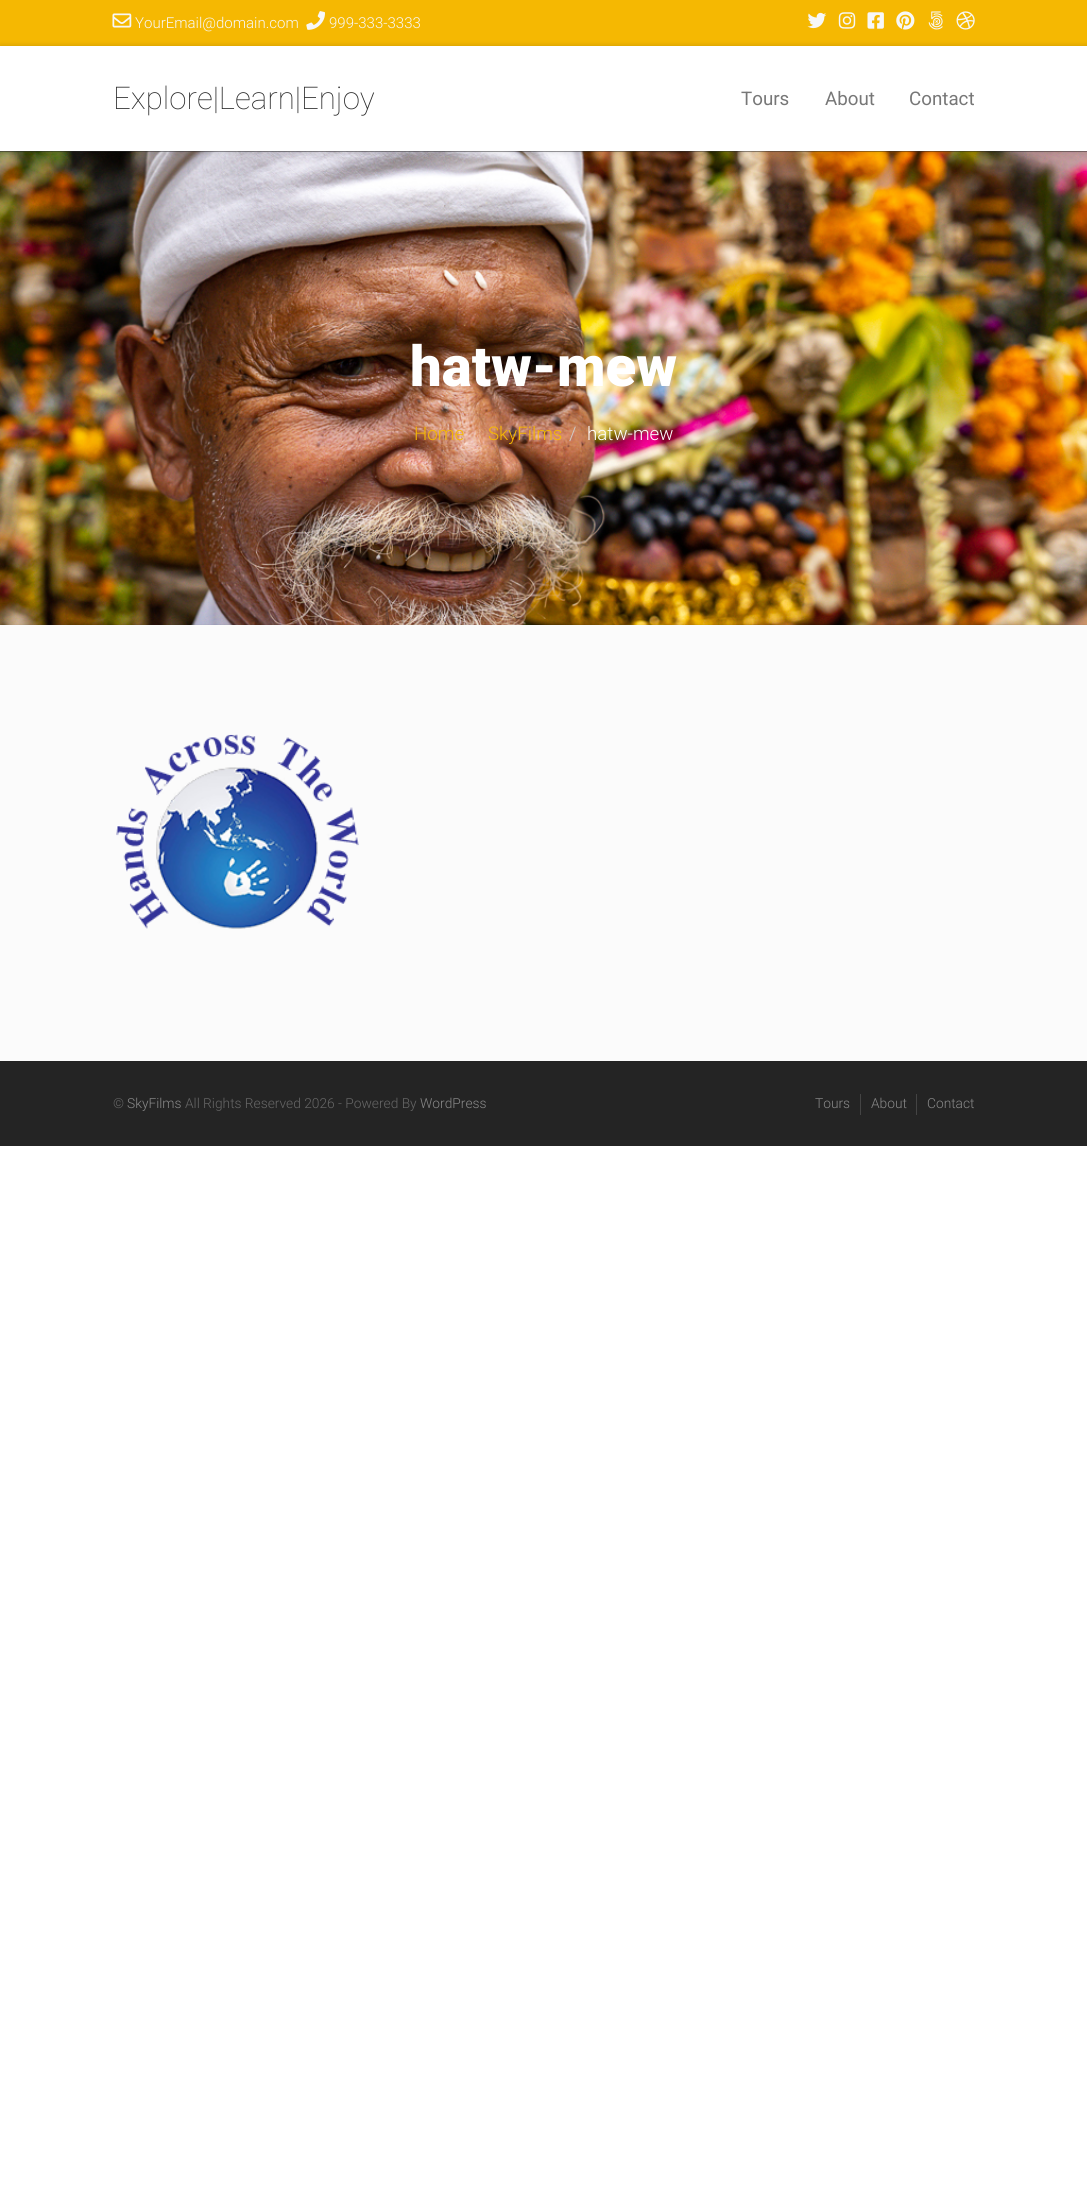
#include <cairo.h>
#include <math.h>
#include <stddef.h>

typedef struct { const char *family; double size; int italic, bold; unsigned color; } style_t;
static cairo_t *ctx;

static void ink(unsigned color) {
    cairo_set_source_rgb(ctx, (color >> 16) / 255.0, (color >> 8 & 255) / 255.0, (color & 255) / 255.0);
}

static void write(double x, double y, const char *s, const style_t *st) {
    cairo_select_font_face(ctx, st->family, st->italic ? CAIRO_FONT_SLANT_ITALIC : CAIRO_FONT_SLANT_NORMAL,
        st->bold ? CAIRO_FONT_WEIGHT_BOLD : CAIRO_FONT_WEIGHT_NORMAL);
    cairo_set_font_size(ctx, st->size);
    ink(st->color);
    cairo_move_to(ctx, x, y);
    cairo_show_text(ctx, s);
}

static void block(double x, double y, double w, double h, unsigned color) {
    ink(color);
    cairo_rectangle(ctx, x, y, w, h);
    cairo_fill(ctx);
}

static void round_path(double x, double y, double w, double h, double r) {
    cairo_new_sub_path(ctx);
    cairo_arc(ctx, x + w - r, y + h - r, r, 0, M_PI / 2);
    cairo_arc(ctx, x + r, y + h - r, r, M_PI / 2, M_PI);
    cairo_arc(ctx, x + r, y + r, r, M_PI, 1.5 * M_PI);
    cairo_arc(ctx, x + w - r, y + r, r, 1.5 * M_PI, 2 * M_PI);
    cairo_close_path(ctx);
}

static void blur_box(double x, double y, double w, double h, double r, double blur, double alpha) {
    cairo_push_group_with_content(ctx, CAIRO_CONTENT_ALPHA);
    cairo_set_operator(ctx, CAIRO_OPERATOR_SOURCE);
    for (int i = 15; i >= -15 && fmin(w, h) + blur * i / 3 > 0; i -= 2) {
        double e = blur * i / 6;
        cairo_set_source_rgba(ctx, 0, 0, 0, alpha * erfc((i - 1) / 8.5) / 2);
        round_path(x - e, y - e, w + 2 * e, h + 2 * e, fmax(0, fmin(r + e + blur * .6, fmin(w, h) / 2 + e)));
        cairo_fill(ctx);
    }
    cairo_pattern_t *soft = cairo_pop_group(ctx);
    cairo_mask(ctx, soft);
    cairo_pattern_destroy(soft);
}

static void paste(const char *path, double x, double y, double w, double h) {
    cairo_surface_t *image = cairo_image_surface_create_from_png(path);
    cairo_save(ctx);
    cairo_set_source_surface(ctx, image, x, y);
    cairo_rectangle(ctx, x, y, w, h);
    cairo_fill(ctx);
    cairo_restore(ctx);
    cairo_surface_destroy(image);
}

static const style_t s1 = {"Roboto Light", 15, 0, 0, 0xf7f7f7};
static const style_t s2 = {"Roboto Thin", 31.25, 0, 0, 0x2b2b2b};
static const style_t s3 = {"Roboto", 18.75, 0, 0, 0x777777};
static const style_t s4 = {"Roboto Black", 56.25, 0, 0, 0xffffff};
static const style_t s5 = {"Roboto Light", 18.75, 0, 0, 0xf5b802};
static const style_t s6 = {"Roboto Light", 18.75, 0, 0, 0xcccccc};
static const style_t s7 = {"Roboto Light", 18.75, 0, 0, 0xffffff};
static const style_t s8 = {"Roboto Light", 13.75, 0, 0, 0x666666};
static const style_t s9 = {"Roboto Light", 13.75, 0, 0, 0x888888};

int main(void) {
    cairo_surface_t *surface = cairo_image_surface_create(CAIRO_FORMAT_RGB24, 1087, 2202);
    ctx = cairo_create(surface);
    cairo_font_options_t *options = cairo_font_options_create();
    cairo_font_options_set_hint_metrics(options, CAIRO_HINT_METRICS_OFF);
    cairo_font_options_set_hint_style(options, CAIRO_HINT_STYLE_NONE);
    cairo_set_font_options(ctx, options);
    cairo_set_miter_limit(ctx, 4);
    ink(0xffffff);
    cairo_paint(ctx);
    block(0, 0, 1087, 46, 0xf5b802);
    paste("pic1.png", 112, 13, 20, 15);
    write(135, 28, "YourEmail@domain.com", &s1);
    paste("pic2.png", 306, 11, 19, 19);
    write(329, 28, "999-333-3333", &s1);
    paste("pic3.png", 807, 12, 20, 17);
    paste("pic4.png", 838, 12, 18, 17);
    paste("pic5.png", 867, 12, 17, 17);
    paste("pic6.png", 896, 11, 19, 19);
    paste("pic7.png", 928, 11, 15, 19);
    paste("pic8.png", 956, 11, 19, 19);
    block(0, 151, 1087, 1, 0x2b2b2b);
    paste("pic9.png", 0, 151, 1087, 474);
    ink(0x000000);
    blur_box(0, 46, 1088, 105, 0, 3, 0.19);
    block(0, 46, 1087, 105, 0xffffff);
    write(113, 109, "Explore|Learn|Enjoy", &s2);
    write(741, 105, "Tours", &s3);
    write(825, 105, "About", &s3);
    write(909, 105, "Contact", &s3);
    block(0, 625, 1087, 436, 0xfbfbfb);
    cairo_set_source_rgba(ctx, 0, 0, 0, 0.03);
    cairo_rectangle(ctx, 0, 624, 1087, 1);
    cairo_fill(ctx);
    write(410, 386, "hatw-mew", &s4);
    write(414, 440, "Home", &s5);
    write(488, 440, "SkyFilms", &s5);
    write(569, 440, "/", &s6);
    write(587, 440, "hatw-mew", &s7);
    paste("pic10.png", 116, 734, 243, 195);
    block(0, 1062, 1087, 84, 0x242424);
    block(0, 1061, 1087, 1, 0x222222);
    write(113, 1108, "©", &s8);
    write(127, 1108, "SkyFilms", &s9);
    write(185, 1108, "All Rights Reserved 2026 - Powered By", &s8);
    write(420, 1108, "WordPress", &s9);
    block(860, 1094, 1, 21, 0x444444);
    write(815, 1108, "Tours", &s9);
    block(916, 1094, 1, 21, 0x444444);
    write(871, 1108, "About", &s9);
    write(927, 1108, "Contact", &s9);
    cairo_surface_write_to_png(surface, "screenshot.png");
    cairo_font_options_destroy(options);
    cairo_destroy(ctx);
    cairo_surface_destroy(surface);
    return 0;
}
